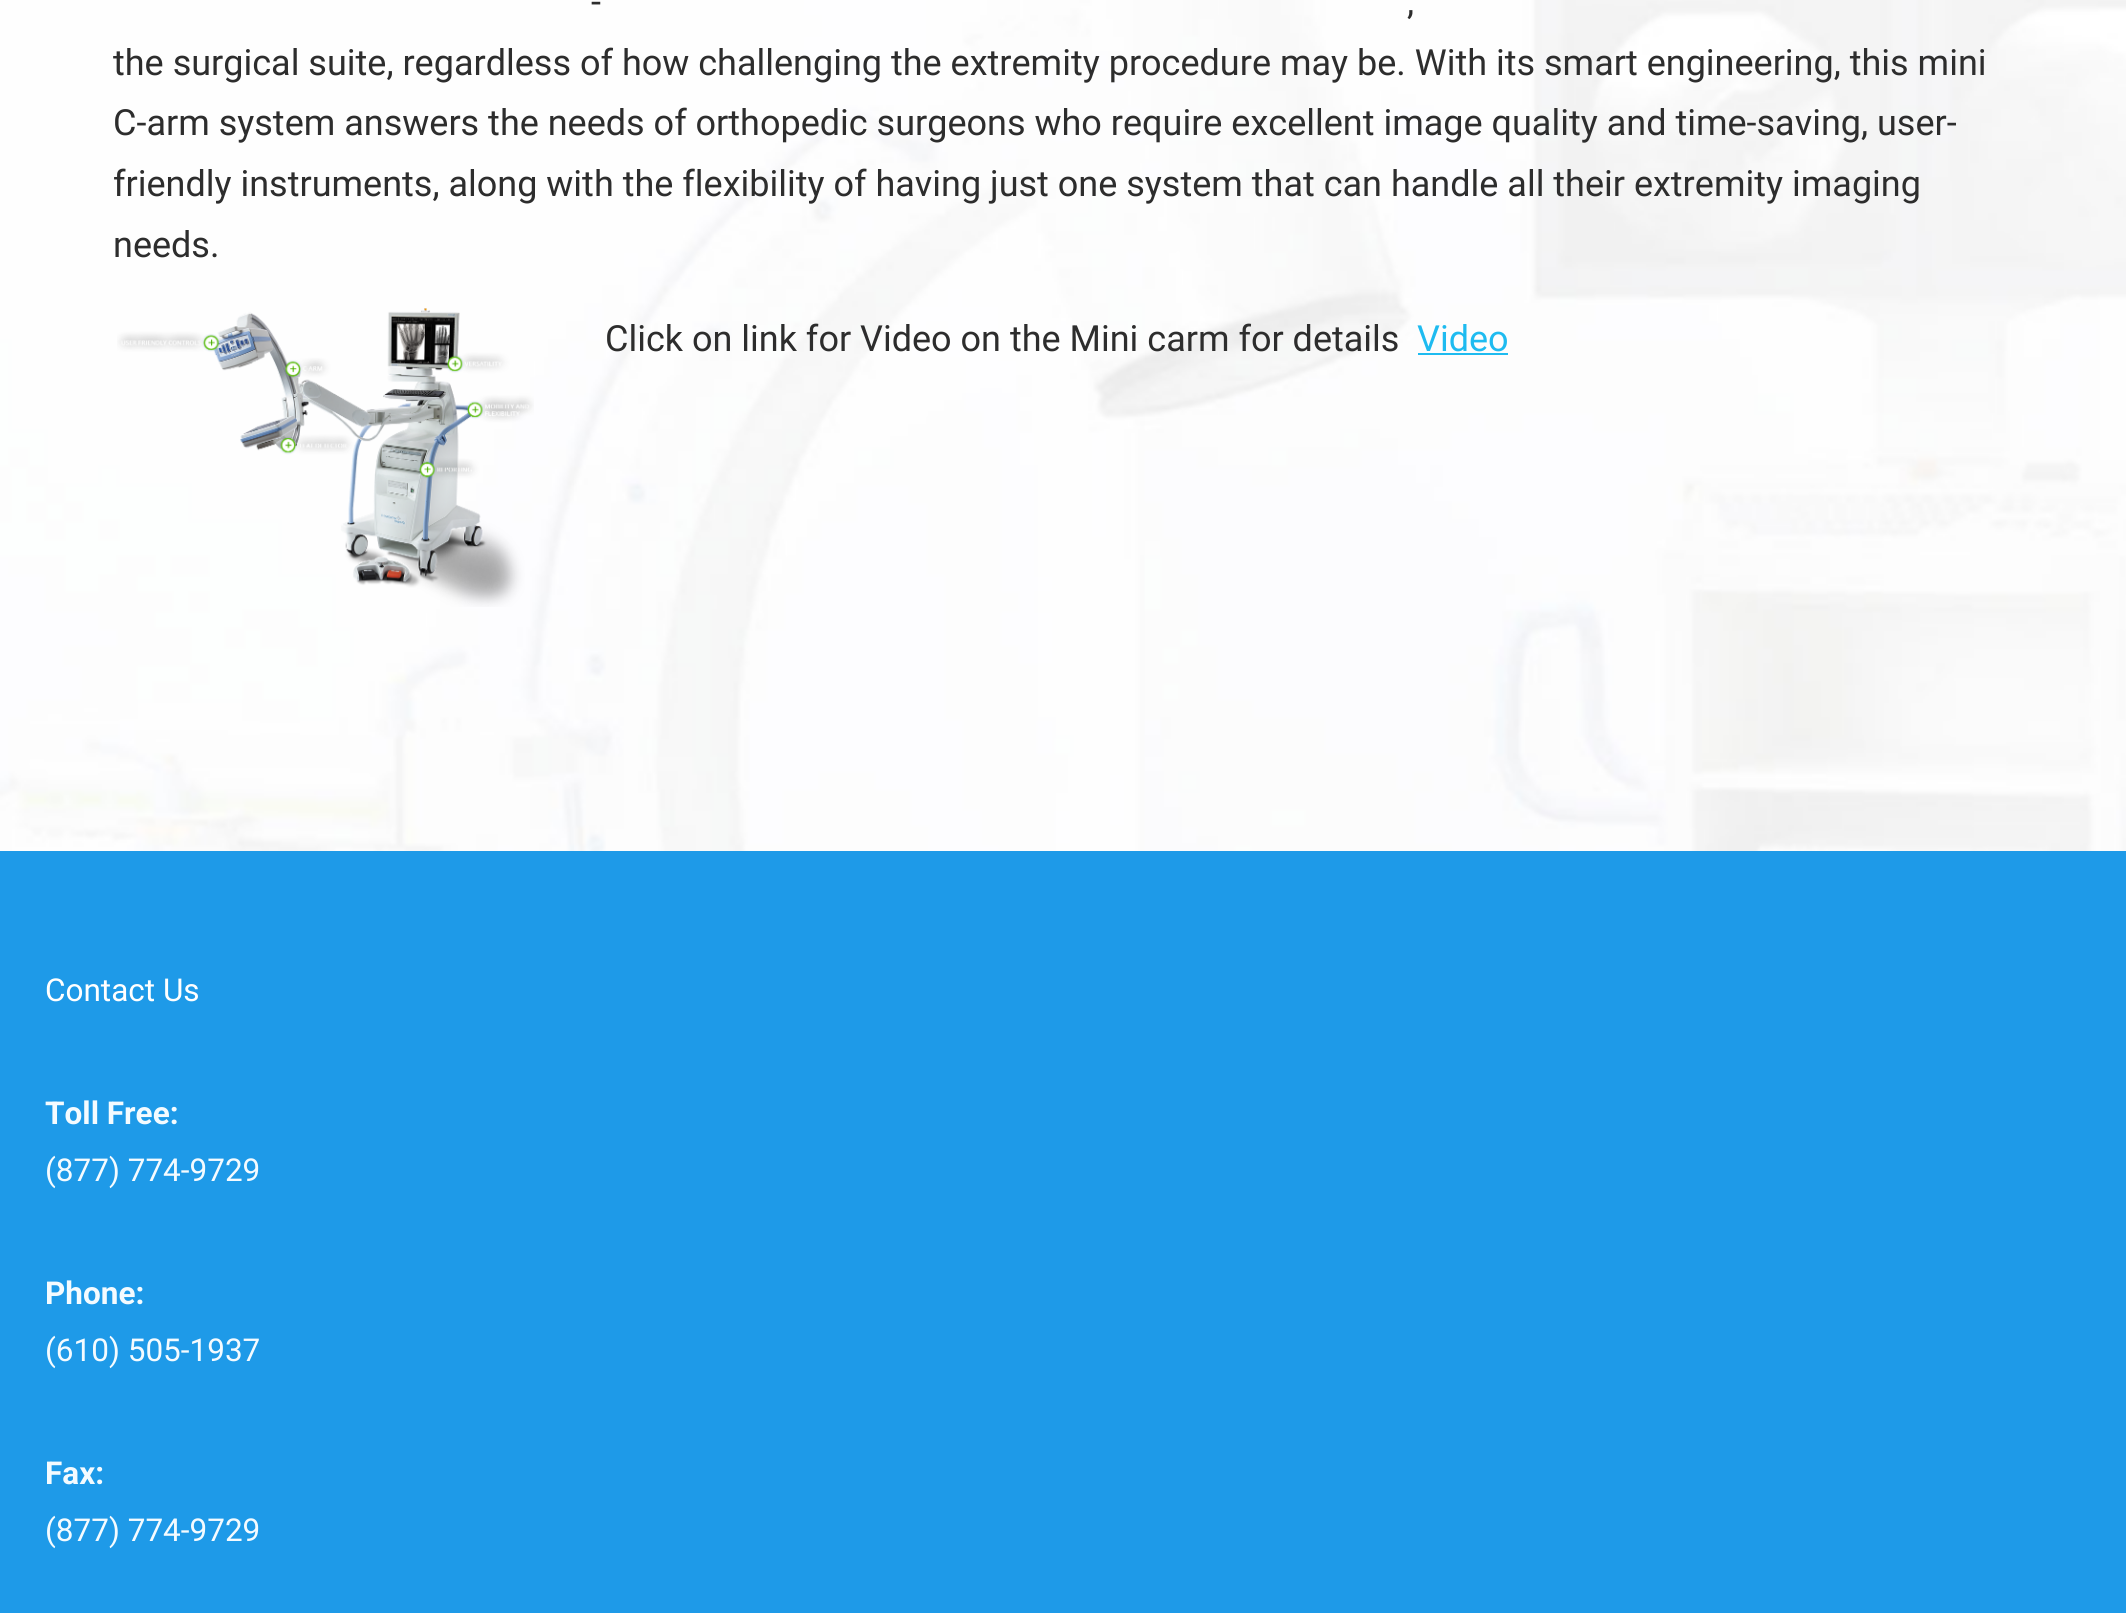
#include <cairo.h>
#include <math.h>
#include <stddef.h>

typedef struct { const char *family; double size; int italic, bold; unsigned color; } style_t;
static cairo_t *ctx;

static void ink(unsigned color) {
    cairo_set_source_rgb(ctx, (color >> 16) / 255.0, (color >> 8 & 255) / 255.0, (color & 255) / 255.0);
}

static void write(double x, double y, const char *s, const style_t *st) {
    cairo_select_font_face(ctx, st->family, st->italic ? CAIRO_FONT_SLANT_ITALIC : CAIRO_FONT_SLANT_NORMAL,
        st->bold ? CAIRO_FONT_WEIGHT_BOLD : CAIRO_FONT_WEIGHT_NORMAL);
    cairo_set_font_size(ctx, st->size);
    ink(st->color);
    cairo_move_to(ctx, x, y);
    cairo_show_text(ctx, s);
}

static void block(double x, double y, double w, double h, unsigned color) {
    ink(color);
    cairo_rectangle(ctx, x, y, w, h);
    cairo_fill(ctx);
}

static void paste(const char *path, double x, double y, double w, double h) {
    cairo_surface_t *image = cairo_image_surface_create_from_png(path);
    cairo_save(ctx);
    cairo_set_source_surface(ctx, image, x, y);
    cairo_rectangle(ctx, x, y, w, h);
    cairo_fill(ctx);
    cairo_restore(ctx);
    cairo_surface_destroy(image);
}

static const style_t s1 = {"Roboto", 36, 0, 0, 0x2d2d2d};
static const style_t s2 = {"Roboto", 36, 0, 0, 0x1ebbf0};
static const style_t s3 = {"Roboto", 31.5, 0, 0, 0xffffff};
static const style_t s4 = {"Roboto", 31.5, 0, 1, 0xf4fbff};
static const style_t s5 = {"Roboto", 31.5, 0, 0, 0xf4fbff};

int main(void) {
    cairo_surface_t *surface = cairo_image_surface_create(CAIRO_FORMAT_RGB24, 2126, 1613);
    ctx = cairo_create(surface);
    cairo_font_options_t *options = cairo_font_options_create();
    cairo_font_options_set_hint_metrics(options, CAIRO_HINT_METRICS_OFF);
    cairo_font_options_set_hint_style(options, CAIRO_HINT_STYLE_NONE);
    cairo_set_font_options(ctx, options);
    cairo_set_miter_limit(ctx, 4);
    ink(0xffffff);
    cairo_paint(ctx);
    paste("pic1.png", 0, 0, 2126, 851);
    write(591, 14, "-", &s1);
    write(1407, 14, ",", &s1);
    write(113, 75, "the surgical suite, regardless of how challenging the extremity procedure may be. With its smart engineering, this mini", &s1);
    write(113, 135, "C-arm system answers the needs of orthopedic surgeons who require excellent image quality and time-saving, user-", &s1);
    write(113, 196, "friendly instruments, along with the flexibility of having just one system that can handle all their extremity imaging", &s1);
    write(113, 257, "needs.", &s1);
    paste("pic2.png", 117, 308, 417, 299);
    write(605, 351, "Click on link for Video on the Mini carm for details", &s1);
    write(1417, 351, "Video", &s2);
    block(1418, 353, 90, 2, 0x1ebbf0);
    block(0, 851, 2126, 762, 0x1e9ae8);
    write(45, 1001, "Contact Us", &s3);
    write(45, 1124, "Toll Free:", &s4);
    write(45, 1181, "(877) 774-9729", &s5);
    write(45, 1304, "Phone:", &s4);
    write(45, 1361, "(610) 505-1937", &s5);
    write(45, 1484, "Fax:", &s4);
    write(45, 1541, "(877) 774-9729", &s5);
    cairo_surface_write_to_png(surface, "screenshot.png");
    cairo_font_options_destroy(options);
    cairo_destroy(ctx);
    cairo_surface_destroy(surface);
    return 0;
}
